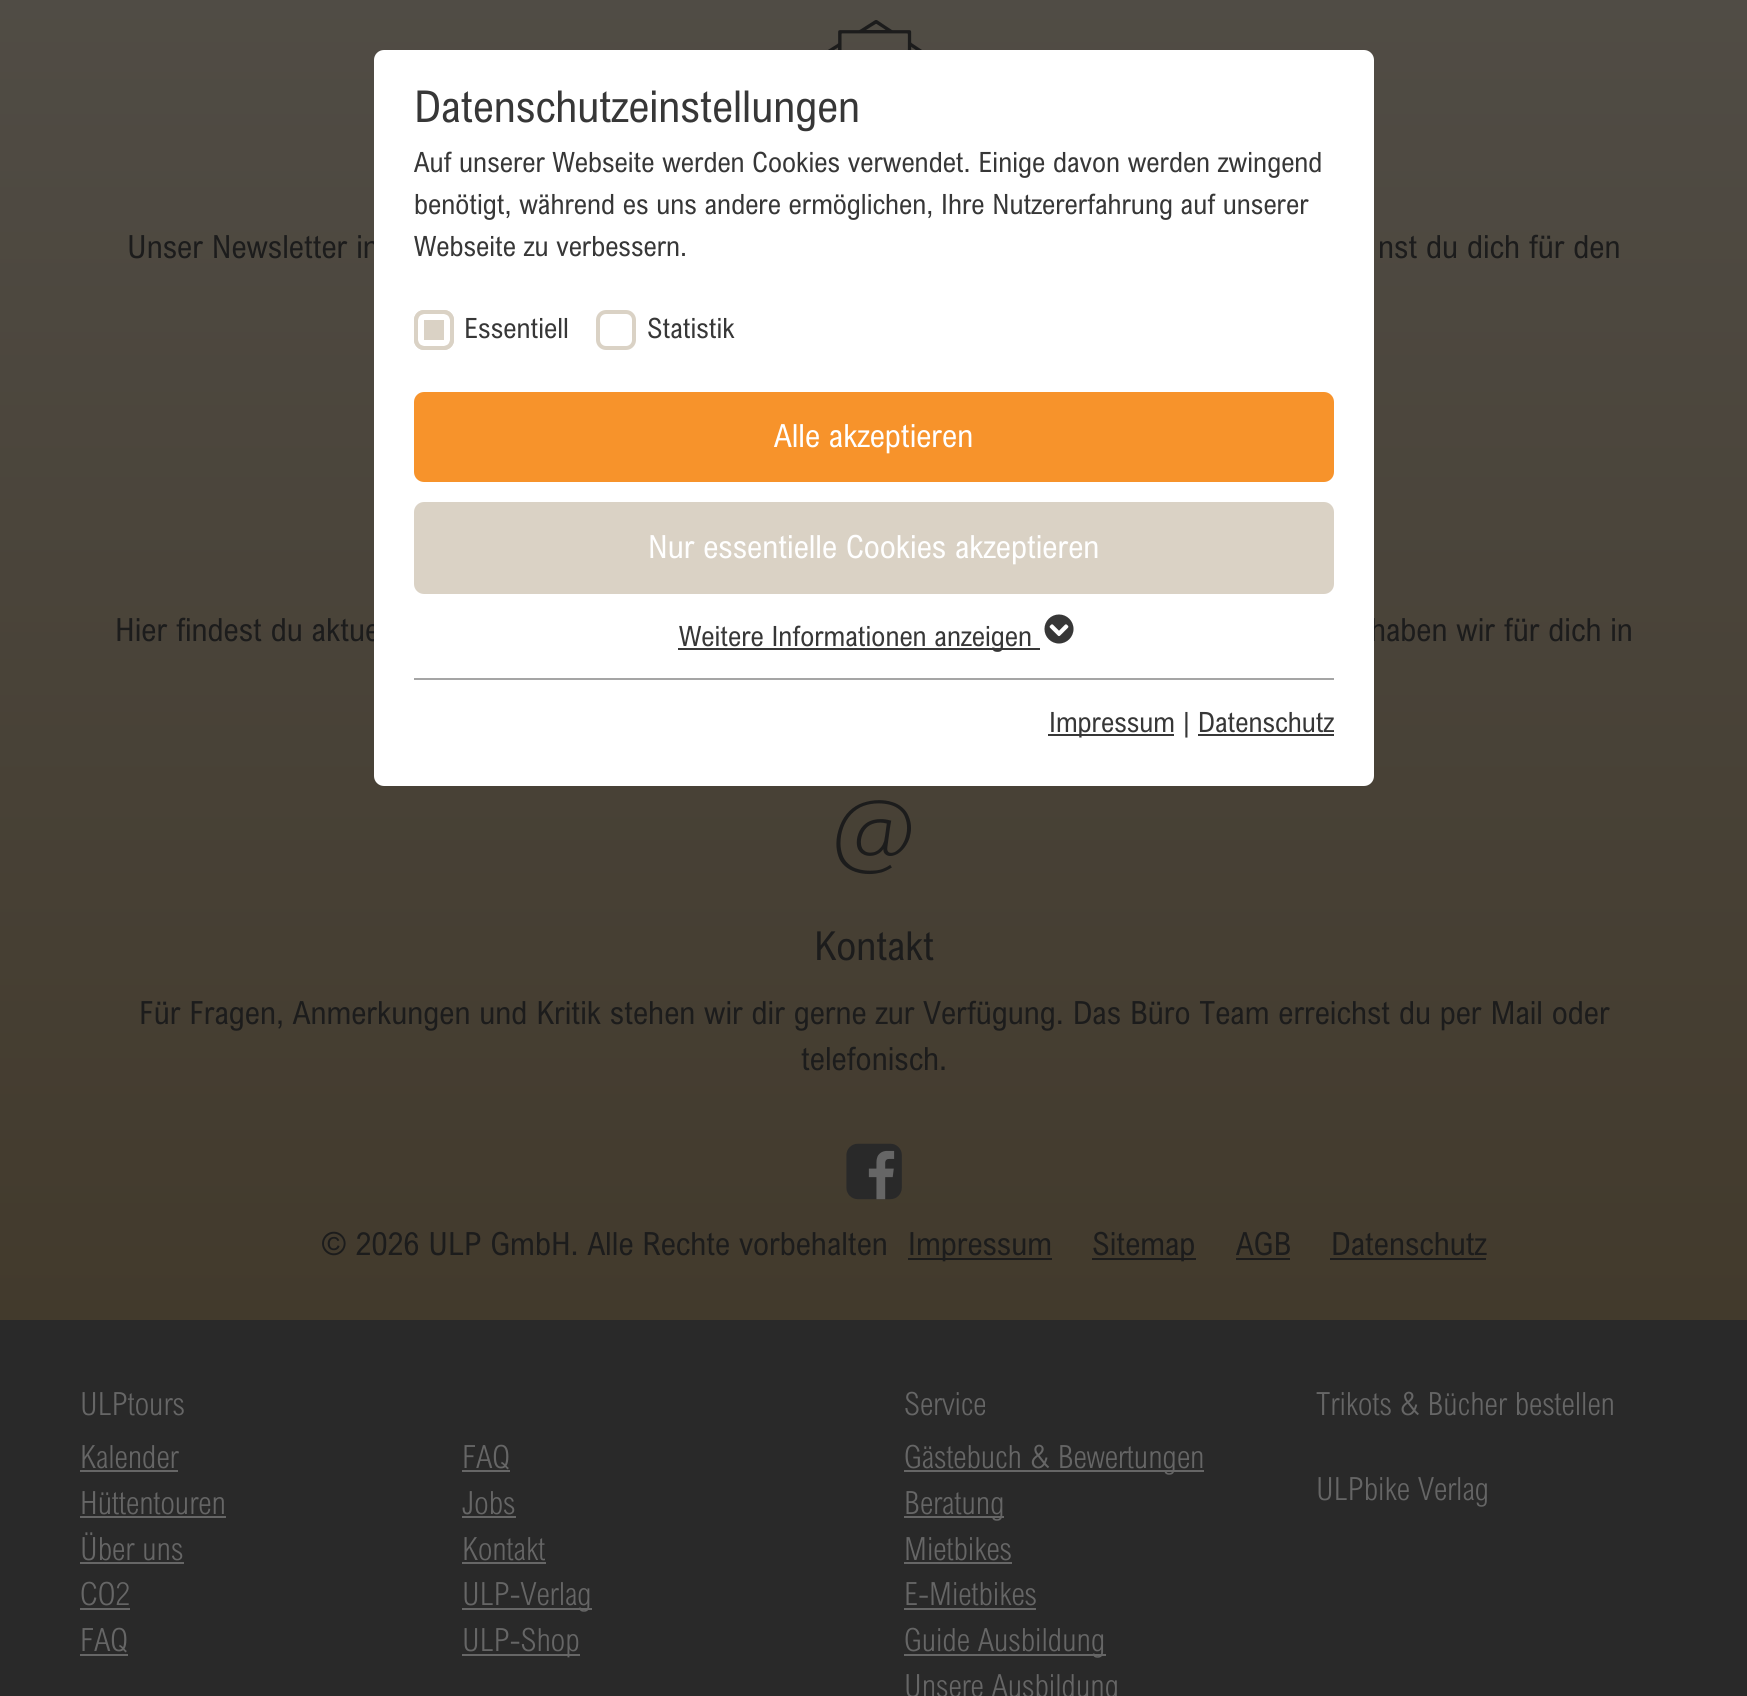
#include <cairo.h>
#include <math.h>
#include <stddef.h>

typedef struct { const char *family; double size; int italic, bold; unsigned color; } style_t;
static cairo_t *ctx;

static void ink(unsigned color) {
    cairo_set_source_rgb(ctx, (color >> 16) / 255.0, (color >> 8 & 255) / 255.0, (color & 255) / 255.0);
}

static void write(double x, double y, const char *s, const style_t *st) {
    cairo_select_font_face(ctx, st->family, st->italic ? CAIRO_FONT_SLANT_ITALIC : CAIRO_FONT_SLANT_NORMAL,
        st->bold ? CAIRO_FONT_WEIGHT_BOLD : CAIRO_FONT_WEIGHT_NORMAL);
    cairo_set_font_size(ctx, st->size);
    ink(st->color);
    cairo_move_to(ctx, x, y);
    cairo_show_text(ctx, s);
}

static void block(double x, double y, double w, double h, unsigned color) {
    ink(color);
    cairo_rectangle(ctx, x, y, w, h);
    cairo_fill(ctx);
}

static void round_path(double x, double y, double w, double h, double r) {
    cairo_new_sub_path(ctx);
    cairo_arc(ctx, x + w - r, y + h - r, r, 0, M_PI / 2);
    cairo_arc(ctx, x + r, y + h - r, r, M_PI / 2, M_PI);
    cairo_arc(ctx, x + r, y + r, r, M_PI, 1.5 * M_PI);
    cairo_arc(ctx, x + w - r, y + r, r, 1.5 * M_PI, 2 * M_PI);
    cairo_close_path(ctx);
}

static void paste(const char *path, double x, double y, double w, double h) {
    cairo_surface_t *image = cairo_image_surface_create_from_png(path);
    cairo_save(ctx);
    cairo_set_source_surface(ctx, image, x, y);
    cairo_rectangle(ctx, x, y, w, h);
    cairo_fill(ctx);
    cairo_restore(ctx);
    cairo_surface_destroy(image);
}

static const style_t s1 = {"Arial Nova", 32, 0, 0, 0x1c1c1c};
static const style_t s2 = {"Arial Nova", 44, 0, 0, 0x373737};
static const style_t s3 = {"Arial Nova", 28, 0, 0, 0x373737};
static const style_t s4 = {"Arial Nova", 32, 0, 0, 0xffffff};
static const style_t s5 = {"Arial Nova", 40, 0, 0, 0x1c1c1c};
static const style_t s6 = {"Arial Nova Light", 32, 0, 0, 0x666666};

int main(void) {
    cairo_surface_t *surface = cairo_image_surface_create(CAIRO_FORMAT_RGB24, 1747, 1696);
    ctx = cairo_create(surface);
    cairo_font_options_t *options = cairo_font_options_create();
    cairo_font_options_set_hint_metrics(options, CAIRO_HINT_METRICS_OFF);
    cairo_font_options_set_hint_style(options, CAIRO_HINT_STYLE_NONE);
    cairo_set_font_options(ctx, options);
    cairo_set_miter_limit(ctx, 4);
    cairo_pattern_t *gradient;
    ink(0x292929);
    cairo_paint(ctx);
    gradient = cairo_pattern_create_linear(874, -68, 874, 1320);
    cairo_pattern_add_color_stop_rgba(gradient, 0, 0.392, 0.259, 0.106, 1);
    cairo_pattern_add_color_stop_rgba(gradient, 0, 0.318, 0.302, 0.275, 1);
    cairo_pattern_add_color_stop_rgba(gradient, 1, 0.259, 0.227, 0.173, 1);
    cairo_pattern_add_color_stop_rgba(gradient, 1, 0.392, 0.239, 0.098, 1);
    cairo_pattern_add_color_stop_rgba(gradient, 1, 0.259, 0.227, 0.173, 1);
    cairo_set_source(ctx, gradient);
    cairo_pattern_destroy(gradient);
    cairo_rectangle(ctx, 0, 0, 1747, 1320);
    cairo_fill(ctx);
    write(127, 258, "Unser Newsletter in", &s1);
    write(115, 641, "Hier findest du aktue", &s1);
    write(1370, 641, "haben wir für dich in", &s1);
    ink(0xffffff);
    round_path(374, 50, 1000, 736, 10);
    cairo_fill(ctx);
    write(414, 122, "Datenschutzeinstellungen", &s2);
    write(414, 172, "Auf unserer Webseite werden Cookies verwendet. Einige davon werden zwingend", &s3);
    write(414, 214, "benötigt, während es uns andere ermöglichen, Ihre Nutzererfahrung auf unserer", &s3);
    write(414, 256, "Webseite zu verbessern.", &s3);
    ink(0xdad2c5);
    round_path(414, 310, 40, 40, 10);
    cairo_fill(ctx);
    round_path(421, 317, 26, 26, 3);
    ink(0xffffff);
    cairo_set_line_width(ctx, 6);
    cairo_stroke(ctx);
    round_path(416, 312, 36, 36, 8);
    ink(0xdad2c5);
    cairo_set_line_width(ctx, 4);
    cairo_stroke(ctx);
    write(464, 338, "Essentiell", &s3);
    round_path(598, 312, 36, 36, 8);
    ink(0xdad2c5);
    cairo_stroke(ctx);
    write(647, 338, "Statistik", &s3);
    ink(0xf7932b);
    round_path(414, 392, 920, 90, 10);
    cairo_fill(ctx);
    write(774, 447, "Alle akzeptieren", &s4);
    ink(0xdad2c5);
    round_path(414, 502, 920, 92, 10);
    cairo_fill(ctx);
    write(648, 558, "Nur essentielle Cookies akzeptieren", &s4);
    block(678, 648, 362, 2, 0x373737);
    write(679, 646, "Weitere Informationen anzeigen", &s3);
    paste("pic1.png", 1044, 614, 30, 30);
    block(414, 678, 920, 2, 0xa5a5a5);
    block(1048, 734, 126, 2, 0x373737);
    write(1049, 732, "Impressum | Datenschutz", &s3);
    block(1198, 734, 136, 2, 0x373737);
    paste("pic2.png", 828, 20, 94, 30);
    write(1378, 258, "nst du dich für den", &s1);
    paste("pic3.png", 836, 800, 75, 75);
    write(814, 960, "Kontakt", &s5);
    write(139, 1024, "Für Fragen, Anmerkungen und Kritik stehen wir dir gerne zur Verfügung. Das Büro Team erreichst du per Mail oder", &s1);
    write(801, 1070, "telefonisch.", &s1);
    paste("pic4.png", 846, 1143, 56, 57);
    write(321, 1255, "© 2026 ULP GmbH. Alle Rechte vorbehalten", &s1);
    block(908, 1258, 144, 2, 0x1c1c1c);
    write(908, 1255, "Impressum", &s1);
    block(1092, 1258, 104, 2, 0x1c1c1c);
    write(1092, 1255, "Sitemap", &s1);
    write(1236, 1255, "AGB", &s1);
    block(1236, 1258, 54, 2, 0x1c1c1c);
    write(1331, 1255, "Datenschutz", &s1);
    block(1330, 1258, 156, 2, 0x1c1c1c);
    write(80, 1415, "ULPtours", &s6);
    write(80, 1468, "Kalender", &s6);
    block(80, 1470, 98, 2, 0x666666);
    write(80, 1514, "Hüttentouren", &s6);
    block(80, 1516, 146, 2, 0x666666);
    write(80, 1560, "Über uns", &s6);
    block(80, 1562, 104, 2, 0x666666);
    write(80, 1605, "CO2", &s6);
    block(80, 1608, 50, 2, 0x666666);
    write(80, 1651, "FAQ", &s6);
    block(80, 1654, 48, 2, 0x666666);
    write(462, 1468, "FAQ", &s6);
    block(462, 1470, 48, 2, 0x666666);
    write(462, 1514, "Jobs", &s6);
    block(462, 1516, 54, 2, 0x666666);
    write(462, 1560, "Kontakt", &s6);
    block(462, 1562, 84, 2, 0x666666);
    block(462, 1608, 130, 2, 0x666666);
    write(462, 1605, "ULP-Verlag", &s6);
    block(462, 1654, 118, 2, 0x666666);
    write(462, 1651, "ULP-Shop", &s6);
    write(904, 1415, "Service", &s6);
    block(904, 1470, 300, 2, 0x666666);
    write(904, 1468, "Gästebuch & Bewertungen", &s6);
    block(904, 1516, 100, 2, 0x666666);
    write(904, 1514, "Beratung", &s6);
    write(904, 1560, "Mietbikes", &s6);
    block(904, 1562, 108, 2, 0x666666);
    write(904, 1605, "E-Mietbikes", &s6);
    block(904, 1608, 132, 2, 0x666666);
    block(904, 1654, 202, 2, 0x666666);
    write(904, 1651, "Guide Ausbildung", &s6);
    write(904, 1697, "Unsere Ausbildung", &s6);
    write(1316, 1415, "Trikots & Bücher bestellen", &s6);
    write(1316, 1500, "ULPbike Verlag", &s6);
    cairo_surface_write_to_png(surface, "screenshot.png");
    cairo_font_options_destroy(options);
    cairo_destroy(ctx);
    cairo_surface_destroy(surface);
    return 0;
}
